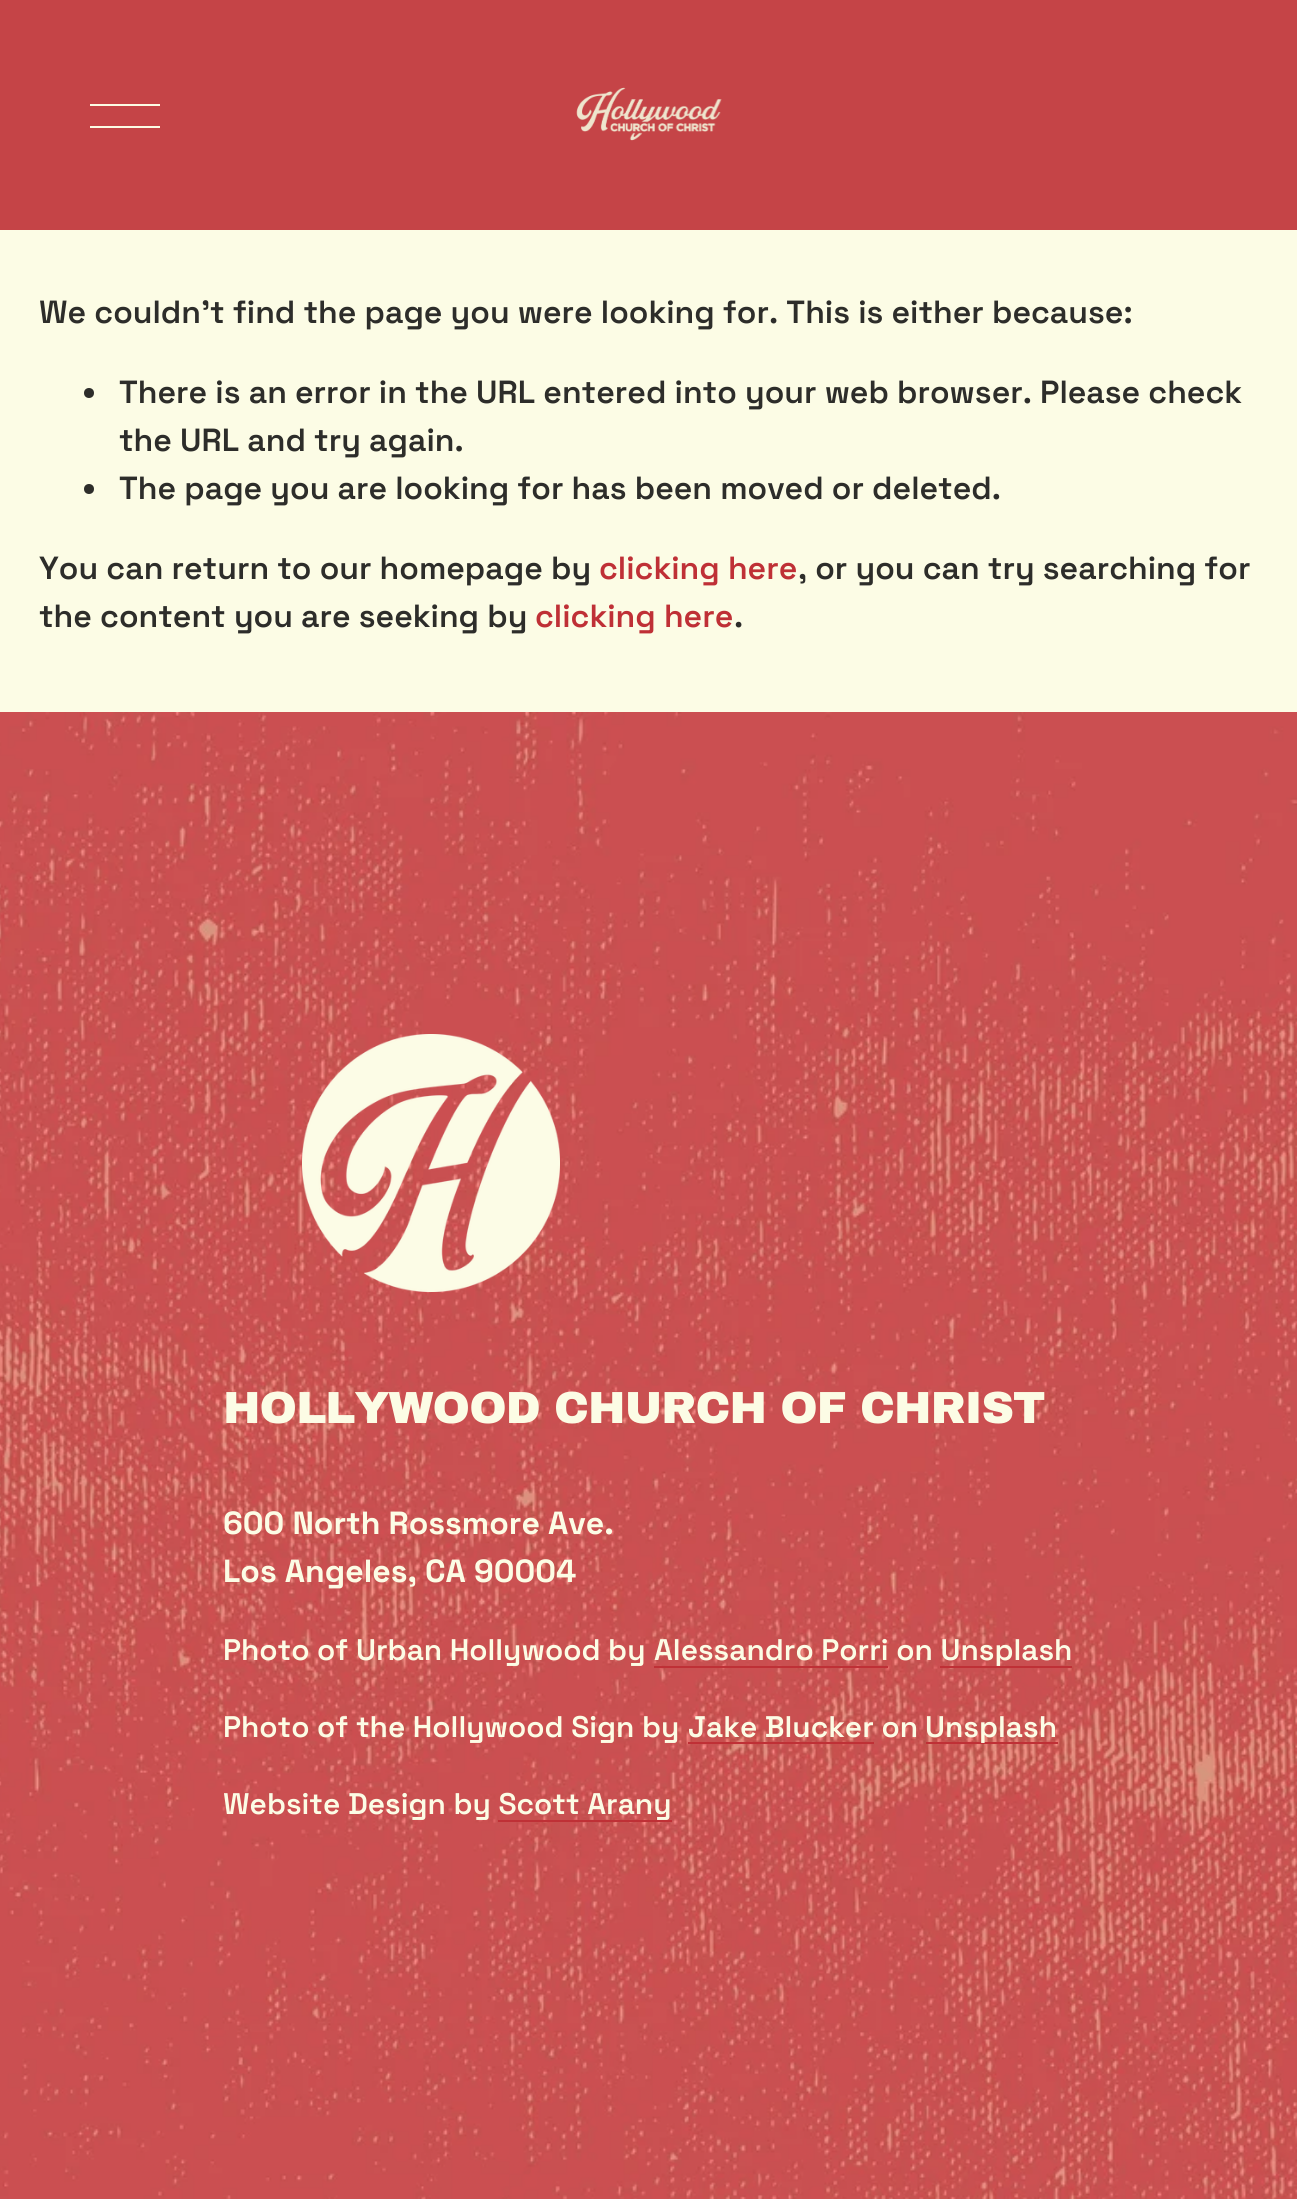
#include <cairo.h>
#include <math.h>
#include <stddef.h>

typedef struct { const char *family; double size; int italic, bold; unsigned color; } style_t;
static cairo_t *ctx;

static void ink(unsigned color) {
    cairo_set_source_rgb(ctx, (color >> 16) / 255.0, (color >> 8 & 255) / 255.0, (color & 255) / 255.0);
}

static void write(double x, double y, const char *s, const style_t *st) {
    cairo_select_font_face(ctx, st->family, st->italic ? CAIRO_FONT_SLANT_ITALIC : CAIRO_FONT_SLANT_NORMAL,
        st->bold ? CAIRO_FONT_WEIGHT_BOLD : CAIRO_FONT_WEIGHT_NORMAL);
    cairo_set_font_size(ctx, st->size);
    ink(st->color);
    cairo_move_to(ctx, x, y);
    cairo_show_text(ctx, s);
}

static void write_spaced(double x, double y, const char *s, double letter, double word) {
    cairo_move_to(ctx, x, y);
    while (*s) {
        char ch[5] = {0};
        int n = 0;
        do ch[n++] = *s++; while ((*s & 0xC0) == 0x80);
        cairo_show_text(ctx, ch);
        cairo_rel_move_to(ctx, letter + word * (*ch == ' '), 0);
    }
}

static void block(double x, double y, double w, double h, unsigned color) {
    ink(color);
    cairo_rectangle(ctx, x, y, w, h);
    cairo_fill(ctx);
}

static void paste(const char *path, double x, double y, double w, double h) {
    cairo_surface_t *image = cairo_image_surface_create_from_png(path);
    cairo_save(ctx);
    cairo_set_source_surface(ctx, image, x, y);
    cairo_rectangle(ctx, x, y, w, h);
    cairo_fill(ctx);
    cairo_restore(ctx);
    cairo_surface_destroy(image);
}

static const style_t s1 = {"Space Grotesk SemiBold", 32, 0, 0, 0x2d2d2a};
static const style_t s2 = {"Space Grotesk SemiBold", 32, 0, 0, 0xbf3036};
static const style_t s3 = {"Space Grotesk", 32, 0, 1, 0xfcfce5};
static const style_t s4 = {"Space Grotesk SemiBold", 29.8, 0, 0, 0xfcfce5};

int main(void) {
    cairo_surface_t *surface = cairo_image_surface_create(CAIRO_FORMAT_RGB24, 1297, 2199);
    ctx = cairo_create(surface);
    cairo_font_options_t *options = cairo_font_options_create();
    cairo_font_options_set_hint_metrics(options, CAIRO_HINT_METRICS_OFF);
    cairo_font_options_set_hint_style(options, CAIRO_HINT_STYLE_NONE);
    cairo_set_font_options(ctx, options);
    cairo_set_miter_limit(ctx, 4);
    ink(0xfcfce5);
    cairo_paint(ctx);
    block(0, 0, 1297, 230, 0xc54447);
    block(90, 104, 70, 2, 0xfcfce5);
    block(90, 126, 70, 2, 0xfcfce5);
    paste("pic1.png", 576, 87, 146, 54);
    write(39, 323, "We couldn't find the page you were looking for. This is either because:", &s1);
    cairo_new_path(ctx);
    cairo_arc(ctx, 89, 393, 5, 0, 2 * M_PI);
    cairo_fill(ctx);
    write(119, 403, "There is an error in the URL entered into your web browser. Please check", &s1);
    write(119, 451, "the URL and try again.", &s1);
    cairo_new_path(ctx);
    cairo_arc(ctx, 89, 489, 5, 0, 2 * M_PI);
    cairo_fill(ctx);
    write(119, 499, "The page you are looking for has been moved or deleted.", &s1);
    write(39, 579, "You can return to our homepage by", &s1);
    write(599, 579, "clicking here", &s2);
    write(798, 579, ", or you can try searching for", &s1);
    write(39, 627, "the content you are seeking by", &s1);
    write(535, 627, "clicking here", &s2);
    write(734, 627, ".", &s1);
    paste("pic2.png", 0, 712, 1297, 1487);
    paste("pic3.png", 302, 1034, 258, 258);
    cairo_select_font_face(ctx, "Archivo Black Black", CAIRO_FONT_SLANT_NORMAL, CAIRO_FONT_WEIGHT_NORMAL);
    cairo_set_font_size(ctx, 45);
    ink(0xfcfce5);
    write_spaced(223, 1423, "HOLLYWOOD CHURCH OF CHRIST", -0.9, 0);
    write(223, 1534, "600 North Rossmore Ave.", &s3);
    write(223, 1582, "Los Angeles, CA 90004", &s3);
    write(223, 1660, "Photo of Urban Hollywood by", &s4);
    write(654, 1660, "Alessandro Porri on Unsplash", &s4);
    block(654, 1666, 234, 2, 0xbf3036);
    block(940, 1666, 132, 2, 0xbf3036);
    write(223, 1737, "Photo of the Hollywood Sign by", &s4);
    write(688, 1737, "Jake Blucker on", &s4);
    block(688, 1742, 186, 2, 0xbf3036);
    block(926, 1742, 132, 2, 0xbf3036);
    write(925, 1737, "Unsplash", &s4);
    write(223, 1814, "Website Design by Scott Arany", &s4);
    block(498, 1820, 174, 2, 0xbf3036);
    cairo_surface_write_to_png(surface, "screenshot.png");
    cairo_font_options_destroy(options);
    cairo_destroy(ctx);
    cairo_surface_destroy(surface);
    return 0;
}
